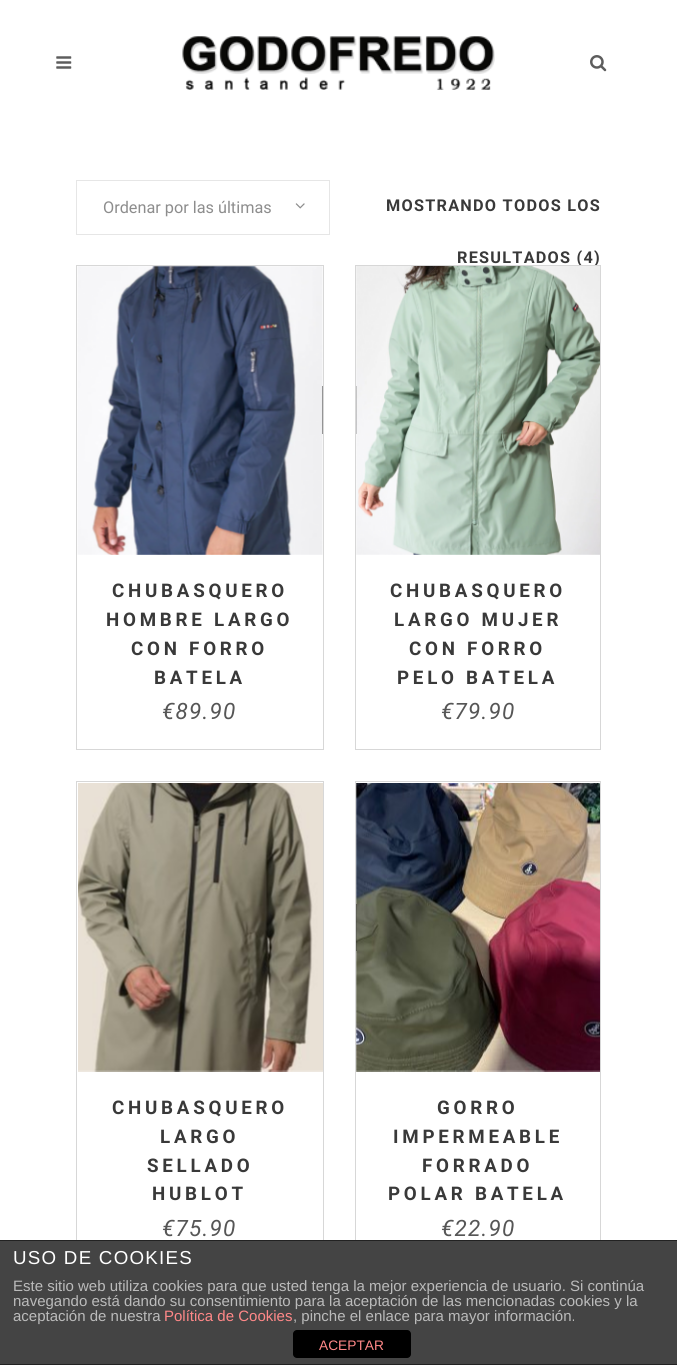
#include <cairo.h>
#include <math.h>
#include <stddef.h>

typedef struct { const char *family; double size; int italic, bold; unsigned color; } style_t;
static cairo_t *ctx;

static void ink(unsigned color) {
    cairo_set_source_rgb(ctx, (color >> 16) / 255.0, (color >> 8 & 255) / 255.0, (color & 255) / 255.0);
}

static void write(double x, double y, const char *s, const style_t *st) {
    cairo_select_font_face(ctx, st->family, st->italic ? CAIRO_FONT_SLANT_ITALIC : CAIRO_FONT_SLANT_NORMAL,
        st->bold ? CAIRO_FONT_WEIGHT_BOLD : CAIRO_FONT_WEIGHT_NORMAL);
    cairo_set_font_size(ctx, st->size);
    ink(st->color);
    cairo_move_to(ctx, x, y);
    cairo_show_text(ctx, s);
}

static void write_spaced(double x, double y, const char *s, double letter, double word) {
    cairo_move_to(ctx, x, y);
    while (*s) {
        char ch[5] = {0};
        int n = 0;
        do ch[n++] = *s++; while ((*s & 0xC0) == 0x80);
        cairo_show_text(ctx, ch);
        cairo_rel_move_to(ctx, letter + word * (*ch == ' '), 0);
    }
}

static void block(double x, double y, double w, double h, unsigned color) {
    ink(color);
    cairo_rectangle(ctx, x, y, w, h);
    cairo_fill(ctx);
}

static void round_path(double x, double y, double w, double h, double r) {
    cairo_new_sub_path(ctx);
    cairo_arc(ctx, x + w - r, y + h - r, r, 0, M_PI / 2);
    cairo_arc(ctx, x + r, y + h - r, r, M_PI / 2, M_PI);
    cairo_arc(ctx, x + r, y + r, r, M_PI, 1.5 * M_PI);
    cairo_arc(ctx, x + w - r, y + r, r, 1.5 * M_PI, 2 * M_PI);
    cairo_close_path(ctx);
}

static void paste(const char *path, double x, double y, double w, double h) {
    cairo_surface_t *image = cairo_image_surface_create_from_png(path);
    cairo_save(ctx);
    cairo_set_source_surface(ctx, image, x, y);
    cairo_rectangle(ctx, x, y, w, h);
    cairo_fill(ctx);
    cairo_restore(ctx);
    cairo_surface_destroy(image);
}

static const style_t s1 = {"Roboto", 16.25, 0, 0, 0x8d8d8d};
static const style_t s2 = {"Liberation Sans", 15, 0, 0, 0xbbbbbb};
static const style_t s3 = {"Liberation Sans", 15, 0, 0, 0xff8888};
static const style_t s4 = {"Liberation Sans", 13.75, 0, 0, 0xff8888};

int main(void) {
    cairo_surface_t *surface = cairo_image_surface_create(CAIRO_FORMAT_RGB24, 677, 1365);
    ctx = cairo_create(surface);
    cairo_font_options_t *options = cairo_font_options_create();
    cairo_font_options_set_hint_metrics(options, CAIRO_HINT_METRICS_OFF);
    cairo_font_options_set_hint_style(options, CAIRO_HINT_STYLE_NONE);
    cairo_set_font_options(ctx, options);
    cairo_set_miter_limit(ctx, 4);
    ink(0xffffff);
    cairo_paint(ctx);
    paste("pic1.png", 56, 56, 16, 13);
    paste("pic2.png", 182, 36, 313, 54);
    paste("pic3.png", 590, 55, 17, 17);
    cairo_rectangle(ctx, 76.5, 180.5, 253, 54);
    ink(0xe6e6e6);
    cairo_set_line_width(ctx, 1);
    cairo_stroke(ctx);
    write(103, 213, "Ordenar por las últimas", &s1);
    paste("pic4.png", 295, 203, 10, 6);
    cairo_select_font_face(ctx, "Roboto", CAIRO_FONT_SLANT_NORMAL, CAIRO_FONT_WEIGHT_BOLD);
    ink(0x393939);
    write_spaced(386, 211, "MOSTRANDO TODOS LOS", 1.25, 0);
    write_spaced(457, 263, "RESULTADOS (4)", 1.25, 0);
    cairo_rectangle(ctx, 76.5, 265.5, 247, 484);
    ink(0xd7d7d7);
    cairo_stroke(ctx);
    cairo_rectangle(ctx, 79.5, 387.5, 242, 45);
    ink(0x393939);
    cairo_set_line_width(ctx, 3);
    cairo_stroke(ctx);
    paste("pic5.png", 77, 266, 246, 289);
    cairo_set_font_size(ctx, 18.75);
    write_spaced(112, 597, "CHUBASQUERO", 3.75, 0);
    write_spaced(106, 626, "HOMBRE LARGO", 3.75, 0);
    write_spaced(131, 655, "CON FORRO", 3.75, 0);
    write_spaced(154, 684, "BATELA", 3.75, 0);
    cairo_select_font_face(ctx, "Roboto", CAIRO_FONT_SLANT_ITALIC, CAIRO_FONT_WEIGHT_NORMAL);
    cairo_set_font_size(ctx, 22.5);
    ink(0x565656);
    write_spaced(162, 719, "€89.90", 1.25, 0);
    cairo_rectangle(ctx, 355.5, 265.5, 245, 484);
    ink(0xd7d7d7);
    cairo_set_line_width(ctx, 1);
    cairo_stroke(ctx);
    cairo_rectangle(ctx, 357.5, 387.5, 241, 45);
    ink(0x393939);
    cairo_set_line_width(ctx, 3);
    cairo_stroke(ctx);
    paste("pic6.png", 356, 266, 244, 289);
    cairo_select_font_face(ctx, "Roboto", CAIRO_FONT_SLANT_NORMAL, CAIRO_FONT_WEIGHT_BOLD);
    cairo_set_font_size(ctx, 18.75);
    write_spaced(390, 597, "CHUBASQUERO", 3.75, 0);
    write_spaced(394, 626, "LARGO MUJER", 3.75, 0);
    write_spaced(409, 655, "CON FORRO", 3.75, 0);
    write_spaced(397, 684, "PELO BATELA", 3.75, 0);
    cairo_select_font_face(ctx, "Roboto", CAIRO_FONT_SLANT_ITALIC, CAIRO_FONT_WEIGHT_NORMAL);
    cairo_set_font_size(ctx, 22.5);
    ink(0x565656);
    write_spaced(441, 719, "€79.90", 1.25, 0);
    cairo_rectangle(ctx, 76.5, 781.5, 247, 484);
    ink(0xd7d7d7);
    cairo_set_line_width(ctx, 1);
    cairo_stroke(ctx);
    paste("pic7.png", 78, 783, 245, 289);
    cairo_select_font_face(ctx, "Roboto", CAIRO_FONT_SLANT_NORMAL, CAIRO_FONT_WEIGHT_BOLD);
    cairo_set_font_size(ctx, 18.75);
    ink(0x393939);
    write_spaced(112, 1114, "CHUBASQUERO", 3.75, 0);
    write_spaced(160, 1143, "LARGO", 3.75, 0);
    write_spaced(147, 1172, "SELLADO", 3.75, 0);
    write_spaced(152, 1200, "HUBLOT", 3.75, 0);
    cairo_select_font_face(ctx, "Roboto", CAIRO_FONT_SLANT_ITALIC, CAIRO_FONT_WEIGHT_NORMAL);
    cairo_set_font_size(ctx, 22.5);
    ink(0x565656);
    write_spaced(162, 1236, "€75.90", 1.25, 0);
    cairo_rectangle(ctx, 355.5, 781.5, 245, 484);
    ink(0xd7d7d7);
    cairo_stroke(ctx);
    cairo_rectangle(ctx, 357.5, 905.5, 241, 44);
    ink(0x393939);
    cairo_set_line_width(ctx, 3);
    cairo_stroke(ctx);
    paste("pic8.png", 356, 783, 244, 289);
    cairo_select_font_face(ctx, "Roboto", CAIRO_FONT_SLANT_NORMAL, CAIRO_FONT_WEIGHT_BOLD);
    cairo_set_font_size(ctx, 18.75);
    write_spaced(437, 1114, "GORRO", 3.75, 0);
    write_spaced(393, 1143, "IMPERMEABLE", 3.75, 0);
    write_spaced(422, 1172, "FORRADO", 3.75, 0);
    write_spaced(388, 1200, "POLAR BATELA", 3.75, 0);
    cairo_select_font_face(ctx, "Roboto", CAIRO_FONT_SLANT_ITALIC, CAIRO_FONT_WEIGHT_NORMAL);
    cairo_set_font_size(ctx, 22.5);
    ink(0x565656);
    write_spaced(441, 1236, "€22.90", 1.25, 0);
    block(0, 1241, 677, 123, 0x444444);
    block(0, 1240, 677, 1, 0x222222);
    block(0, 1364, 677, 1, 0x222222);
    cairo_select_font_face(ctx, "Liberation Sans", CAIRO_FONT_SLANT_NORMAL, CAIRO_FONT_WEIGHT_NORMAL);
    cairo_set_font_size(ctx, 18.75);
    ink(0xffffff);
    write_spaced(13, 1264, "USO DE COOKIES", 1.25, 0);
    write(13, 1291, "Este sitio web utiliza cookies para que usted tenga la mejor experiencia de usuario. Si continúa", &s2);
    write(13, 1306, "navegando está dando su consentimiento para la aceptación de las mencionadas cookies y la", &s2);
    write(13, 1321, "aceptación de nuestra", &s2);
    write(164, 1321, "Política de Cookies", &s3);
    write(293, 1321, ", pinche el enlace para mayor información.", &s2);
    ink(0x000000);
    round_path(293, 1330, 118, 28, 4);
    cairo_fill(ctx);
    write(319, 1350, "ACEPTAR", &s4);
    cairo_surface_write_to_png(surface, "screenshot.png");
    cairo_font_options_destroy(options);
    cairo_destroy(ctx);
    cairo_surface_destroy(surface);
    return 0;
}
